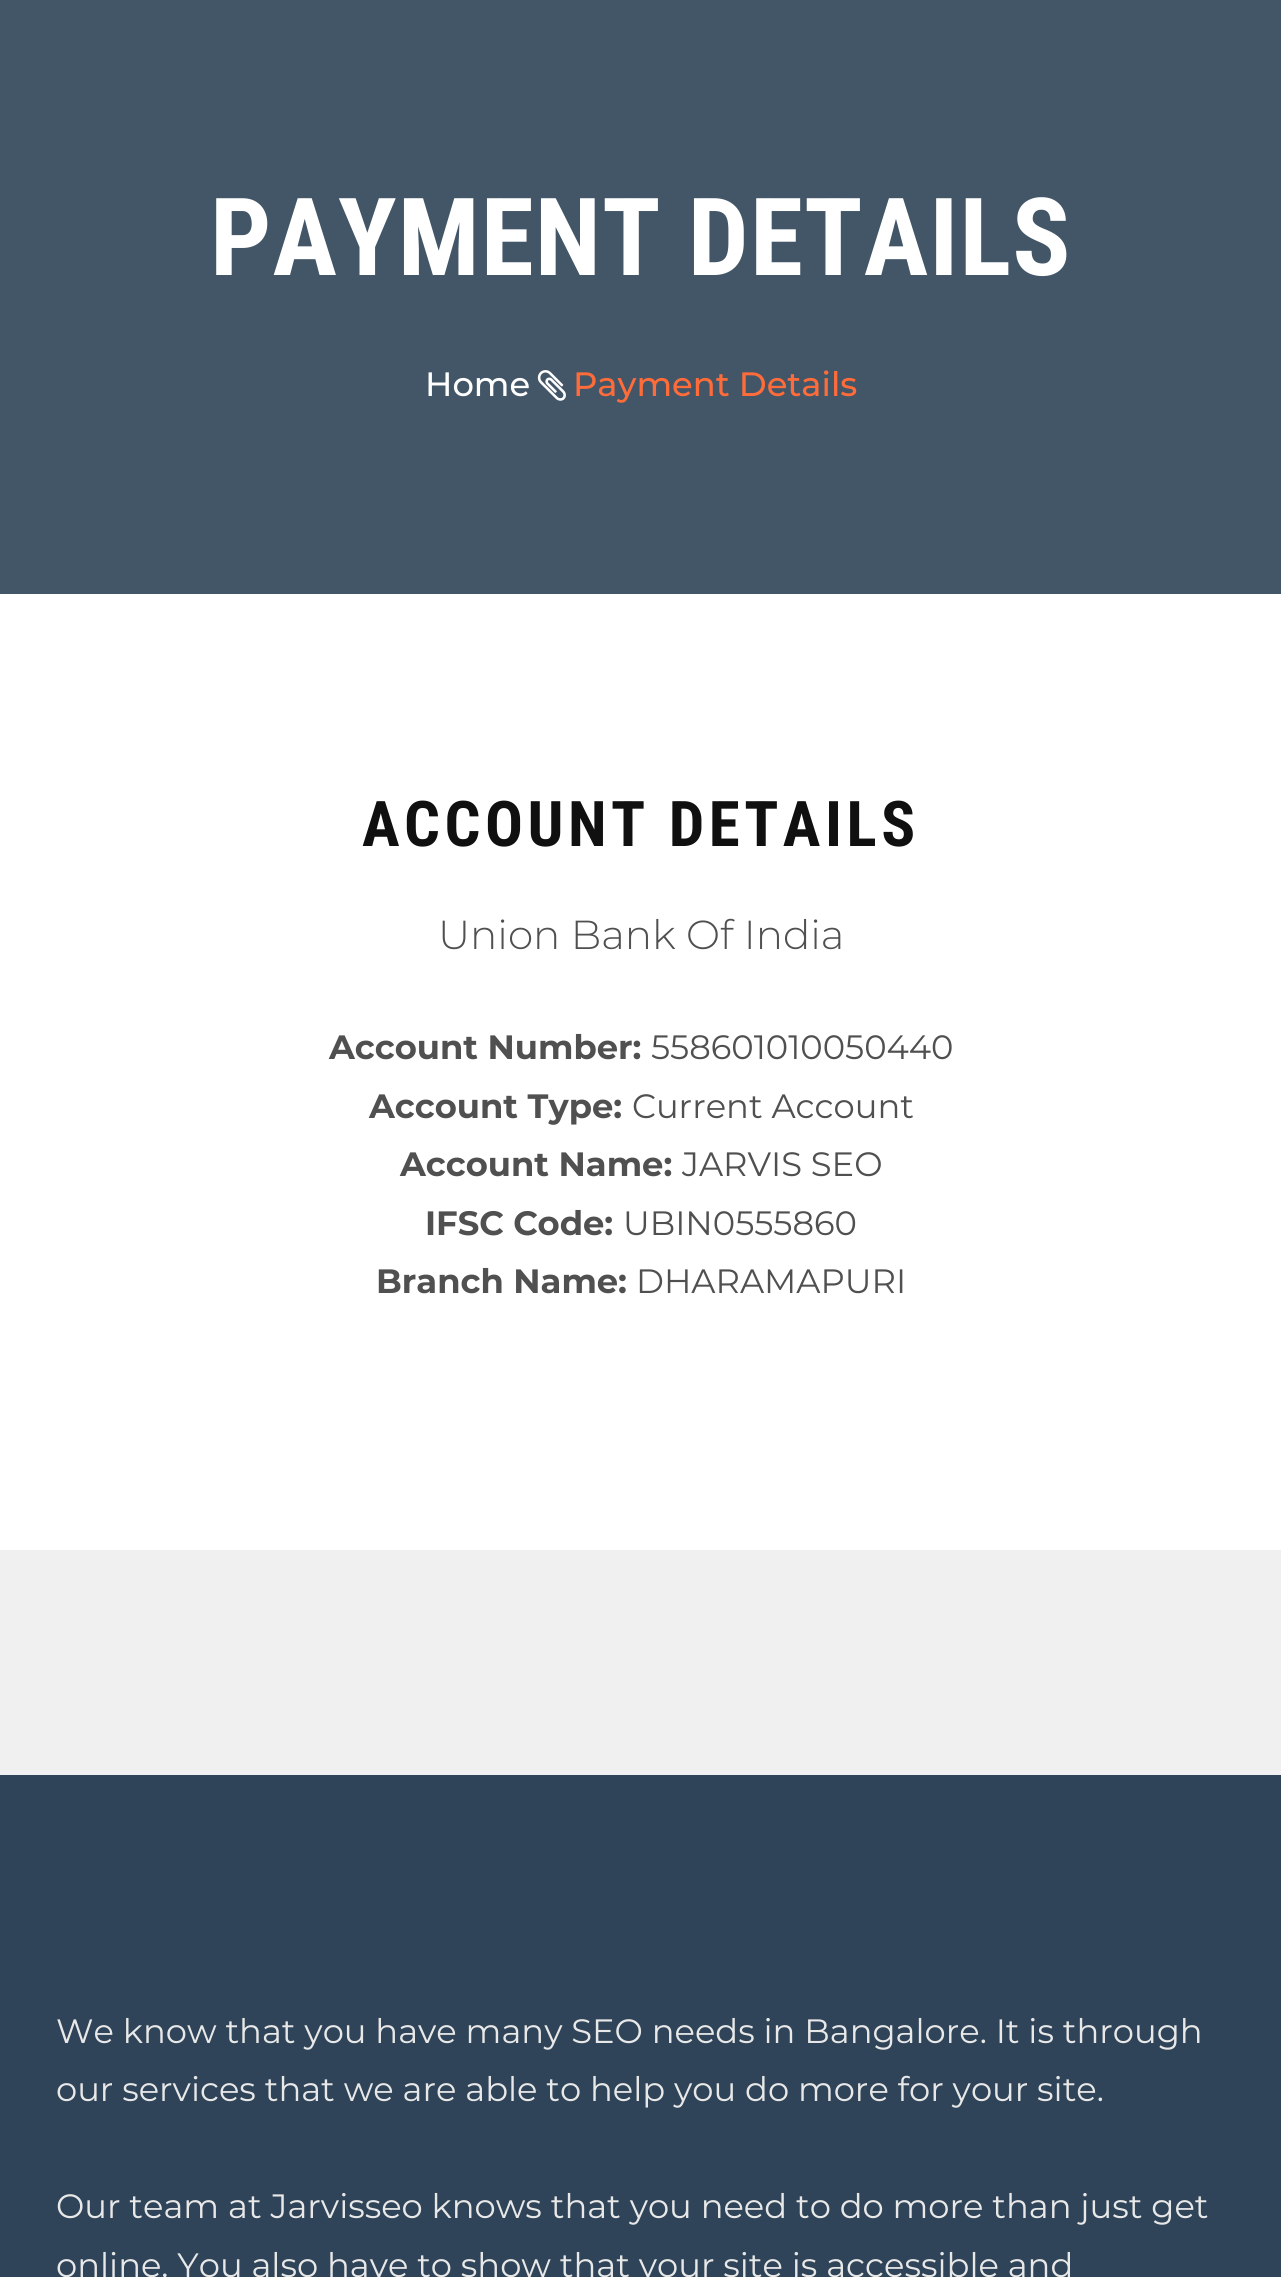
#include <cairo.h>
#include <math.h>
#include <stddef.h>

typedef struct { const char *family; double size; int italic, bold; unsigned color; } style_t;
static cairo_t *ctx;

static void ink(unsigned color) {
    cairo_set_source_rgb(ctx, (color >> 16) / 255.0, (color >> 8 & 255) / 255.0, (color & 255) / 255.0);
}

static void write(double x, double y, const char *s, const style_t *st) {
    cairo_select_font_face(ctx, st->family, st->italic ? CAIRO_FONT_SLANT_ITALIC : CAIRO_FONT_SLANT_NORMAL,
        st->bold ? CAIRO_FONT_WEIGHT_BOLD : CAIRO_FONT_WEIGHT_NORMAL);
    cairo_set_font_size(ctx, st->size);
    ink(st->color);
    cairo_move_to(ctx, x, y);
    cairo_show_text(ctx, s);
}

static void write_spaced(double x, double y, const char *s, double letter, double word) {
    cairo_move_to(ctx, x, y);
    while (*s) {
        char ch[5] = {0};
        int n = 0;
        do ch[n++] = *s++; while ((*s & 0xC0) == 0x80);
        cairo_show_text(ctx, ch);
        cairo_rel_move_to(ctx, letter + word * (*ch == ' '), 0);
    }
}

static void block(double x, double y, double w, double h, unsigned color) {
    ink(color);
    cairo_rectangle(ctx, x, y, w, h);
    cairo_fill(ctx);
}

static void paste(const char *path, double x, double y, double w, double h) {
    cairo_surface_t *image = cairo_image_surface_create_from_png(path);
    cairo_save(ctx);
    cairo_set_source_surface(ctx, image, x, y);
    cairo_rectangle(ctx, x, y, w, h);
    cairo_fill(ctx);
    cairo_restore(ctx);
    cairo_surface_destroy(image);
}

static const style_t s1 = {"Montserrat Medium", 33.75, 0, 0, 0xffffff};
static const style_t s2 = {"Montserrat Medium", 33.75, 0, 0, 0xff6c39};
static const style_t s3 = {"Montserrat Light", 40.5, 0, 0, 0x505050};
static const style_t s4 = {"Montserrat", 33.75, 0, 1, 0x505050};
static const style_t s5 = {"Montserrat", 33.75, 0, 0, 0x505050};
static const style_t s6 = {"Montserrat", 33.75, 0, 0, 0xe8e8e8};

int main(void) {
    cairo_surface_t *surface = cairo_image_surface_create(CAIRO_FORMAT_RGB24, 1281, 2277);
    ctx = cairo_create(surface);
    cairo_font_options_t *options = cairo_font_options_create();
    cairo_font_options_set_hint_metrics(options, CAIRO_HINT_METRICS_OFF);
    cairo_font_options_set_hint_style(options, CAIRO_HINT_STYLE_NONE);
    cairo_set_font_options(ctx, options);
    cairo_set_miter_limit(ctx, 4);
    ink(0xffffff);
    cairo_paint(ctx);
    block(0, 0, 1281, 594, 0x435668);
    cairo_select_font_face(ctx, "Roboto Condensed", CAIRO_FONT_SLANT_NORMAL, CAIRO_FONT_WEIGHT_BOLD);
    cairo_set_font_size(ctx, 108);
    ink(0xffffff);
    write_spaced(210, 275, "PAYMENT DETAILS", 1.1, 0);
    write(425, 396, "Home", &s1);
    paste("pic1.png", 537, 370, 29, 31);
    write(573, 396, "Payment Details", &s2);
    cairo_select_font_face(ctx, "Roboto Condensed", CAIRO_FONT_SLANT_NORMAL, CAIRO_FONT_WEIGHT_BOLD);
    cairo_set_font_size(ctx, 63);
    ink(0x101010);
    write_spaced(362, 846, "ACCOUNT DETAILS", 4.5, 0);
    write(438, 949, "Union Bank Of India", &s3);
    write(329, 1059, "Account Number:", &s4);
    write(651, 1059, "558601010050440", &s5);
    write(369, 1118, "Account Type:", &s4);
    write(632, 1118, "Current Account", &s5);
    write(400, 1176, "Account Name:", &s4);
    write(682, 1176, "JARVIS SEO", &s5);
    write(425, 1235, "IFSC Code:", &s4);
    write(623, 1235, "UBIN0555860", &s5);
    write(376, 1293, "Branch Name:", &s4);
    write(636, 1293, "DHARAMAPURI", &s5);
    block(0, 1550, 1281, 225, 0xf0f0f0);
    block(0, 1775, 1281, 502, 0x2f4458);
    write(56, 2043, "We know that you have many SEO needs in Bangalore. It is through", &s6);
    write(56, 2101, "our services that we are able to help you do more for your site.", &s6);
    write(56, 2218, "Our team at Jarvisseo knows that you need to do more than just get", &s6);
    write(56, 2277, "online. You also have to show that your site is accessible and", &s6);
    cairo_surface_write_to_png(surface, "screenshot.png");
    cairo_font_options_destroy(options);
    cairo_destroy(ctx);
    cairo_surface_destroy(surface);
    return 0;
}
